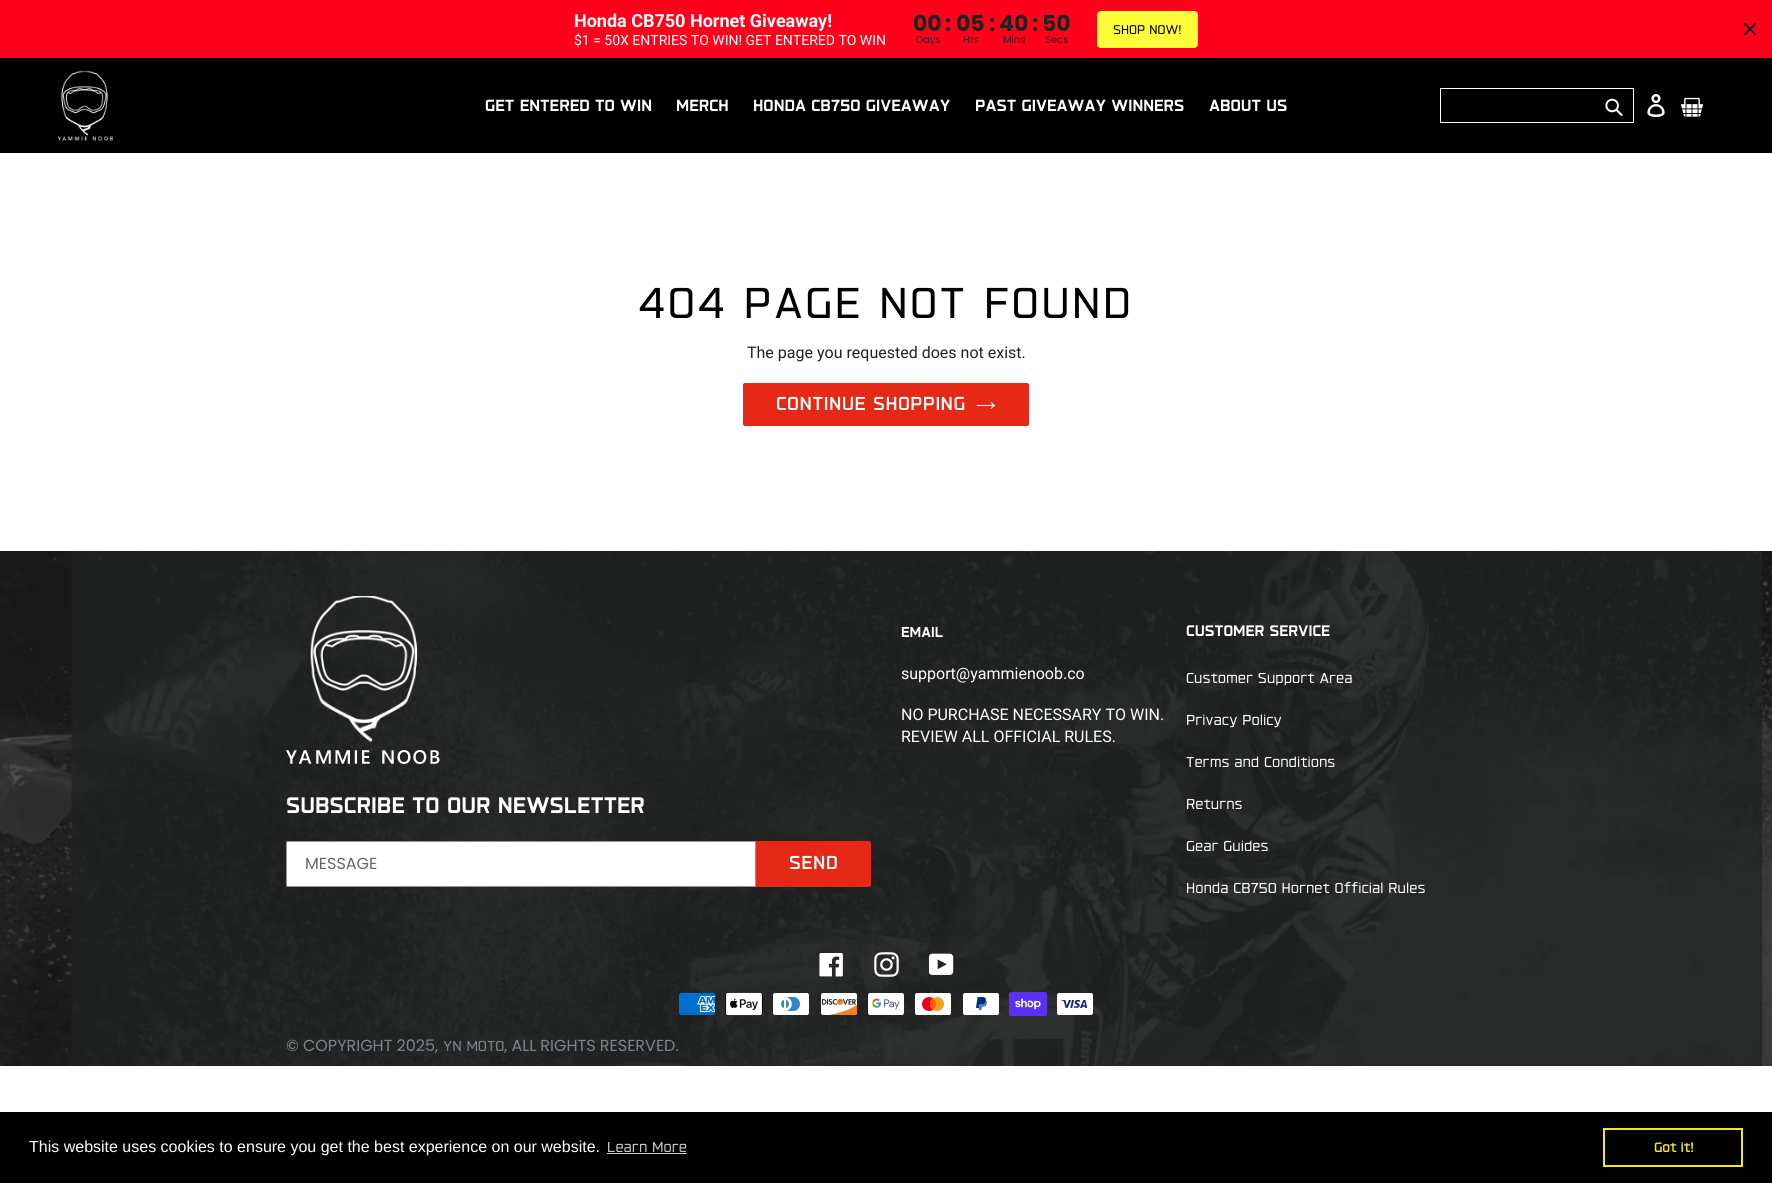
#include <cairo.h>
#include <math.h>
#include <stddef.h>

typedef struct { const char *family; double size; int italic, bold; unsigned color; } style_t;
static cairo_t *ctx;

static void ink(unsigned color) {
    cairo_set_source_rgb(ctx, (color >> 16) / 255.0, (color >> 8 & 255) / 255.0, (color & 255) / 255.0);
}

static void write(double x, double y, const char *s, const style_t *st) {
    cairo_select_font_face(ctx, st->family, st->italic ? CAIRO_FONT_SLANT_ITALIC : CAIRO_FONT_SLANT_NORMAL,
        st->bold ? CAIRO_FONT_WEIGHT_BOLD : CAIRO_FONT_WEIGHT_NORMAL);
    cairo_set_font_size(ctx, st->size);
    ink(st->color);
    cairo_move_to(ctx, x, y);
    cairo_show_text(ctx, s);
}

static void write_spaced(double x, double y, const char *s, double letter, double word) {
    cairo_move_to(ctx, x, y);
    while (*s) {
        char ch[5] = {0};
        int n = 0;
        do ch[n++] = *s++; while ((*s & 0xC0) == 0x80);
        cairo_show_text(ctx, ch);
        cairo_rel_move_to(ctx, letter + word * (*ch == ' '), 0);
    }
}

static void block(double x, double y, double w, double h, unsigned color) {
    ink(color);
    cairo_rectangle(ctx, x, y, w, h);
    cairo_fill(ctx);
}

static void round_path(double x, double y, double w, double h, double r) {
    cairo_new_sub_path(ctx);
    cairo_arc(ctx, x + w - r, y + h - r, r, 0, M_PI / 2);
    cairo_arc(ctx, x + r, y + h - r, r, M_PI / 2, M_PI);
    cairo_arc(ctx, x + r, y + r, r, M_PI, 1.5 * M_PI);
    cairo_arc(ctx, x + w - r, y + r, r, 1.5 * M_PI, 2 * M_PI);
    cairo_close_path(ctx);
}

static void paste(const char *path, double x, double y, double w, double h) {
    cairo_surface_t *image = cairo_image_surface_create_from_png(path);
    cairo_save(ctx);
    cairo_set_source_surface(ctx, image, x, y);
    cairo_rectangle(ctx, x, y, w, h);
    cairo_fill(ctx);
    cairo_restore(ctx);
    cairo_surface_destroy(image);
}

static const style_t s1 = {"Roboto", 18, 0, 1, 0xffffff};
static const style_t s2 = {"Roboto", 14, 0, 0, 0xffffff};
static const style_t s3 = {"Poppins", 22, 0, 1, 0x202222};
static const style_t s4 = {"Poppins", 10, 0, 0, 0x202222};
static const style_t s5 = {"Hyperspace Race", 14, 0, 0, 0x000000};
static const style_t s6 = {"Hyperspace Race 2", 18, 0, 1, 0xffffff};
static const style_t s7 = {"Roboto", 16, 0, 0, 0x202222};
static const style_t s8 = {"Hyperspace Race 2", 16, 0, 1, 0xffffff};
static const style_t s9 = {"Roboto", 16, 0, 0, 0xffffff};
static const style_t s10 = {"Hyperspace Race 2", 17, 0, 1, 0xffffff};
static const style_t s11 = {"Hyperspace Race", 16, 0, 0, 0xffffff};
static const style_t s12 = {"Hyperspace Race 2", 25, 0, 1, 0xffffff};
static const style_t s13 = {"Poppins", 16, 0, 0, 0x666666};
static const style_t s14 = {"Poppins", 16, 0, 0, 0x7b868c};
static const style_t s15 = {"Hyperspace Race", 16, 0, 0, 0x7b868c};
static const style_t s16 = {"Liberation Sans", 16, 0, 0, 0xffffff};
static const style_t s17 = {"Hyperspace Race", 16, 0, 0, 0xcccccc};
static const style_t s18 = {"Hyperspace Race", 14.5, 0, 1, 0xf8e71c};

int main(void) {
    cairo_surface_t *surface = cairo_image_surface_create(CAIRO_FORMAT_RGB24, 1772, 1183);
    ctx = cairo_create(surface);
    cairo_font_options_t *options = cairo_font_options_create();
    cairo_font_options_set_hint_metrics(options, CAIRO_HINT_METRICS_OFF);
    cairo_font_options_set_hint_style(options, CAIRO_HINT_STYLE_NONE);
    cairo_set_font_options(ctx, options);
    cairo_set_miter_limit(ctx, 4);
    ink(0xffffff);
    cairo_paint(ctx);
    block(0, 0, 1772, 58, 0xff021b);
    write(574, 27, "Honda CB750 Hornet Giveaway!", &s1);
    write(574, 45, "$1 = 50X ENTRIES TO WIN! GET ENTERED TO WIN", &s2);
    write(913, 31, "00", &s3);
    write(945, 31, ":", &s3);
    write(956, 31, "05", &s3);
    write(989, 31, ":", &s3);
    write(999, 31, "40", &s3);
    write(1032, 31, ":", &s3);
    write(1042, 31, "50", &s3);
    write(916, 43, "Days", &s4);
    write(963, 43, "Hrs", &s4);
    write(1003, 43, "Mins", &s4);
    write(1045, 43, "Secs", &s4);
    ink(0xfffc39);
    round_path(1097, 11, 101, 37, 4);
    cairo_fill(ctx);
    write(1113, 34, "SHOP NOW!", &s5);
    paste("pic1.png", 1744, 23, 12, 12);
    block(0, 58, 1772, 95, 0x000000);
    paste("pic2.png", 57, 70, 56, 71);
    write(485, 111, "GET ENTERED TO WIN", &s6);
    write(676, 111, "MERCH", &s6);
    write(753, 111, "HONDA CB750 GIVEAWAY", &s6);
    write(975, 111, "PAST GIVEAWAY WINNERS", &s6);
    write(1209, 111, "ABOUT US", &s6);
    cairo_rectangle(ctx, 1440.5, 88.5, 193, 34);
    cairo_set_line_width(ctx, 1);
    cairo_stroke(ctx);
    paste("pic3.png", 1605, 98, 18, 18);
    paste("pic4.png", 1647, 94, 18, 23);
    paste("pic5.png", 1681, 97, 22, 20);
    cairo_select_font_face(ctx, "Hyperspace Race", CAIRO_FONT_SLANT_NORMAL, CAIRO_FONT_WEIGHT_NORMAL);
    cairo_set_font_size(ctx, 48);
    ink(0x000000);
    write_spaced(638, 318, "404 PAGE NOT FOUND", 2.4, 0);
    write(747, 358, "The page you requested does not exist.", &s7);
    ink(0xe62816);
    round_path(743, 383, 286, 43, 2);
    cairo_fill(ctx);
    cairo_select_font_face(ctx, "Hyperspace Race", CAIRO_FONT_SLANT_NORMAL, CAIRO_FONT_WEIGHT_BOLD);
    cairo_set_font_size(ctx, 20);
    ink(0xffffff);
    write_spaced(776, 410, "CONTINUE SHOPPING", 1, 0);
    paste("pic6.png", 976, 401, 20, 8);
    paste("pic7.png", 0, 551, 1772, 515);
    write(901, 637, "EMAIL", &s8);
    write(901, 679, "support@yammienoob.co", &s9);
    write(901, 720, "NO PURCHASE NECESSARY TO WIN.", &s9);
    write(901, 742, "REVIEW ALL OFFICIAL RULES.", &s9);
    write(1186, 636, "CUSTOMER SERVICE", &s10);
    write(1186, 683, "Customer Support Area", &s11);
    write(1186, 725, "Privacy Policy", &s11);
    write(1186, 767, "Terms and Conditions", &s11);
    write(1186, 809, "Returns", &s11);
    write(1186, 851, "Gear Guides", &s11);
    write(1186, 893, "Honda CB750 Hornet Official Rules", &s11);
    paste("pic8.png", 286, 596, 154, 168);
    write(286, 813, "SUBSCRIBE TO OUR NEWSLETTER", &s12);
    cairo_new_path(ctx);
    cairo_move_to(ctx, 288, 841.5);
    cairo_line_to(ctx, 755.5, 841.5);
    cairo_line_to(ctx, 755.5, 886.5);
    cairo_line_to(ctx, 288, 886.5);
    cairo_curve_to(ctx, 287, 886.5, 286.5, 886, 286.5, 885);
    cairo_line_to(ctx, 286.5, 843);
    cairo_curve_to(ctx, 286.5, 842, 287, 841.5, 288, 841.5);
    cairo_close_path(ctx);
    cairo_fill_preserve(ctx);
    ink(0x949494);
    cairo_stroke(ctx);
    write(305, 869, "MESSAGE", &s13);
    ink(0xe62816);
    cairo_new_path(ctx);
    cairo_move_to(ctx, 756, 841);
    cairo_line_to(ctx, 869, 841);
    cairo_curve_to(ctx, 870, 841, 871, 842, 871, 843);
    cairo_line_to(ctx, 871, 885);
    cairo_curve_to(ctx, 871, 886, 870, 887, 869, 887);
    cairo_line_to(ctx, 756, 887);
    cairo_close_path(ctx);
    cairo_fill(ctx);
    cairo_select_font_face(ctx, "Hyperspace Race", CAIRO_FONT_SLANT_NORMAL, CAIRO_FONT_WEIGHT_BOLD);
    cairo_set_font_size(ctx, 20);
    ink(0xffffff);
    write_spaced(789, 869, "SEND", 1, 0);
    paste("pic9.png", 819, 953, 24, 24);
    paste("pic10.png", 874, 952, 25, 25);
    paste("pic11.png", 929, 953, 25, 22);
    paste("pic12.png", 679, 993, 36, 22);
    paste("pic13.png", 725, 992, 38, 24);
    paste("pic14.png", 773, 993, 36, 22);
    paste("pic15.png", 821, 993, 36, 22);
    paste("pic16.png", 868, 993, 36, 22);
    paste("pic17.png", 915, 993, 36, 22);
    paste("pic18.png", 963, 993, 36, 22);
    paste("pic19.png", 1009, 992, 38, 24);
    paste("pic20.png", 1057, 993, 36, 22);
    write(286, 1051, "© COPYRIGHT 2025,", &s14);
    write(443, 1051, "YN MOTO", &s15);
    write(504, 1051, ", ALL RIGHTS RESERVED.", &s14);
    block(0, 1112, 1772, 71, 0x000000);
    write(29, 1152, "This website uses cookies to ensure you get the best experience on our website.", &s16);
    write(607, 1152, "Learn More", &s17);
    block(607, 1153, 80, 1, 0xcccccc);
    cairo_rectangle(ctx, 1604, 1129, 138, 37);
    ink(0xf8e71c);
    cairo_set_line_width(ctx, 2);
    cairo_stroke(ctx);
    write(1654, 1152, "Got it!", &s18);
    cairo_surface_write_to_png(surface, "screenshot.png");
    cairo_font_options_destroy(options);
    cairo_destroy(ctx);
    cairo_surface_destroy(surface);
    return 0;
}
